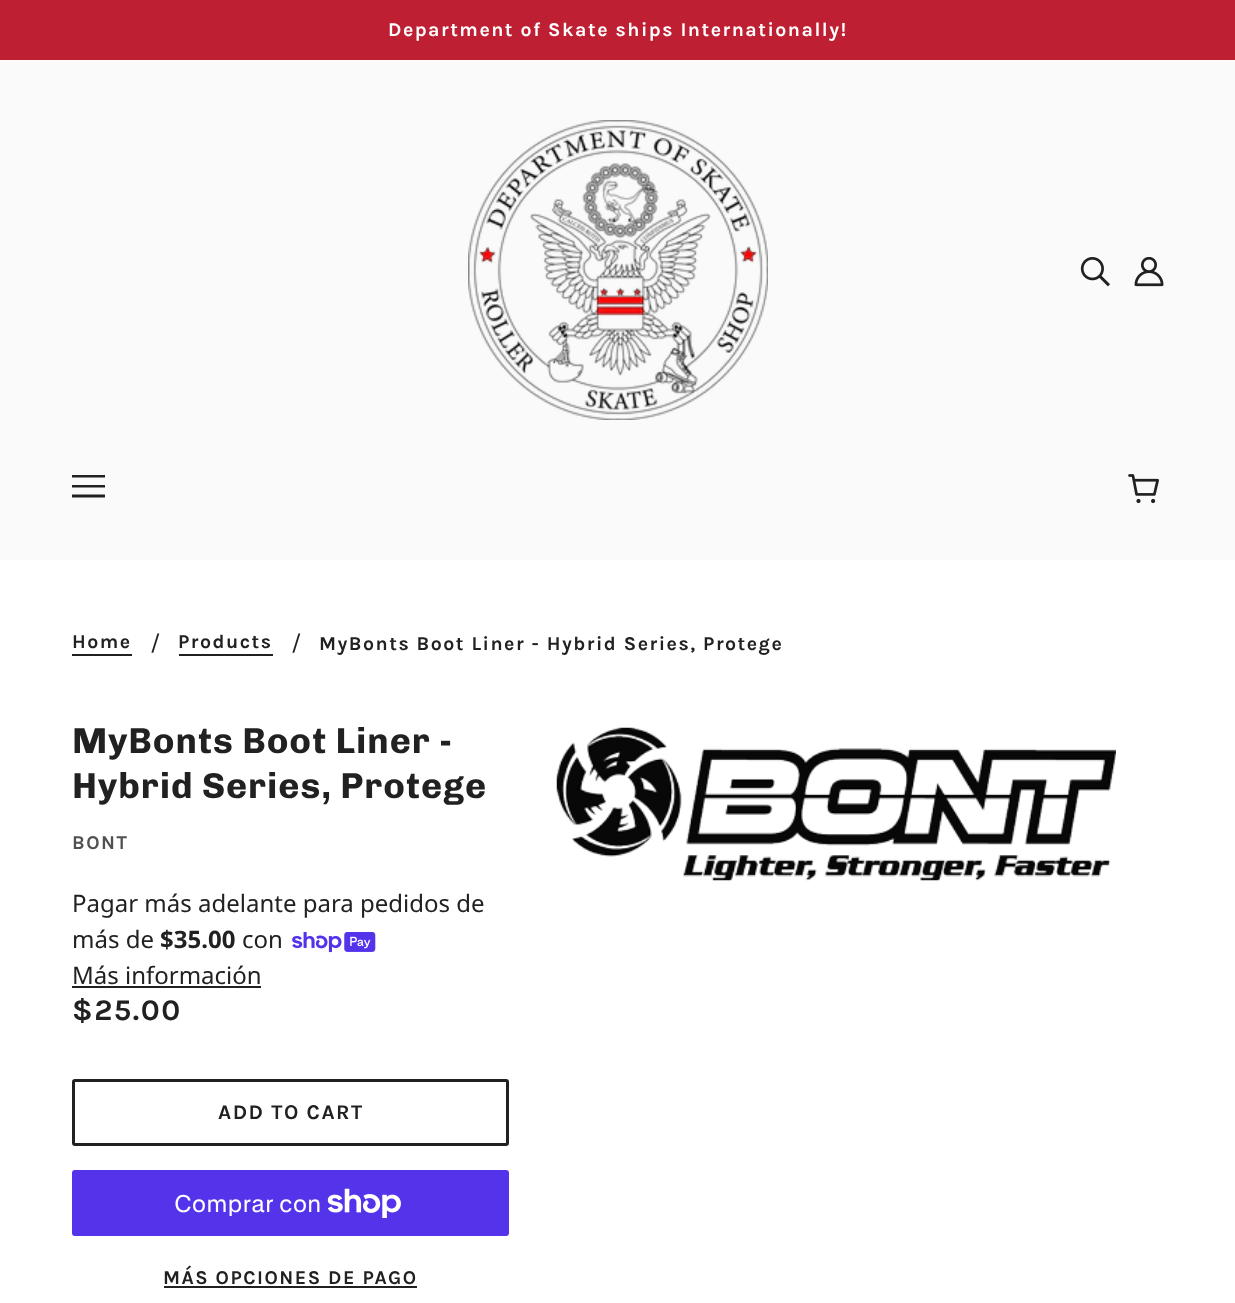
<svg xmlns="http://www.w3.org/2000/svg" width="1235" height="1303">
	<rect width="100%" height="100%" fill="#FFFFFF" />
	<rect x="0" y="0" width="1235" height="60" fill="#BF1F32" />
	<text x="388" y="36" font-family="Karla" font-size="19.5" font-weight="700" letter-spacing="1.5" fill="#FFFFFF">Department of Skate ships Internationally!</text>
	<rect x="0" y="60" width="1235" height="500" fill="#FAFAFA" />
	<image x="468" y="120" width="300" height="300" href="assets/img1.png" />
	<image x="1080" y="257" width="30" height="30" href="assets/img2.png" />
	<image x="1134" y="257" width="30" height="30" href="assets/img3.png" />
	<path d="M72 477.5V475H105V477.5ZM72 487.5V485H105V487.5ZM72 497.5V494.5H105V497.5Z" fill="#212121" />
	<image x="1128" y="474" width="31" height="30" href="assets/img4.png" />
	<text x="72" y="648" font-family="Karla" font-size="19.5" font-weight="700" letter-spacing="1.5" fill="#212121">Home</text>
	<rect x="72" y="654" width="60" height="2" fill="#212121" />
	<text x="150" y="651" font-family="Karla" font-size="24" fill="#212121">/</text>
	<text x="178" y="648" font-family="Karla" font-size="19.5" font-weight="700" letter-spacing="1.5" fill="#212121">Products</text>
	<rect x="179" y="654" width="94" height="2" fill="#212121" />
	<text x="291" y="651" font-family="Karla" font-size="24" fill="#212121">/</text>
	<text x="319" y="650" font-family="Karla" font-size="19.5" font-weight="700" letter-spacing="1.5" fill="#212121">MyBonts Boot Liner - Hybrid Series, Protege</text>
	<g font-family="Chivo" font-size="36" font-weight="700" letter-spacing="0.9" fill="#212121">
		<text x="72" y="753">MyBonts Boot Liner -</text>
		<text x="72" y="798">Hybrid Series, Protege</text>
	</g>
	<text x="72" y="849" font-family="Karla" font-size="19.5" font-weight="700" letter-spacing="1.5" fill="#515151">BONT</text>
	<image x="556" y="727" width="560" height="154" href="assets/img5.png" />
	<g font-family="Noto Sans" font-size="24" fill="#212121">
		<text x="72" y="912">Pagar más adelante para pedidos de</text>
		<text x="72" y="948">más de</text>
	</g>
	<text x="160" y="948" font-family="Noto Sans" font-size="24" font-weight="700" fill="#212121">$35.00</text>
	<text x="242" y="948" font-family="Noto Sans" font-size="24" fill="#212121">con</text>
	<image x="292" y="932" width="84" height="21" href="assets/img6.png" />
	<text x="72" y="984" font-family="Noto Sans" font-size="24" fill="#212121">Más información</text>
	<rect x="72" y="986" width="189" height="2" fill="#212121" />
	<text x="72" y="1020" font-family="Karla" font-size="30" font-weight="700" letter-spacing="1.5" fill="#212121">$25.00</text>
	<rect x="73.5" y="1080.5" width="434" height="64" rx="1.5" fill="none" stroke="#212121" stroke-width="3" />
	<text x="218" y="1119" font-family="Karla" font-size="21" font-weight="700" letter-spacing="1.5" fill="#212121">ADD TO CART</text>
	<rect x="72" y="1170" width="437" height="66" rx="3" fill="#5433EB" />
	<text x="174" y="1212" font-family="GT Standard" font-size="24" fill="#FFFFFF">Comprar con</text>
	<image x="327" y="1188" width="74" height="30" href="assets/img7.png" />
	<text x="163" y="1284" font-family="Karla" font-size="19.5" font-weight="700" letter-spacing="1.5" fill="#212121">MÁS OPCIONES DE PAGO</text>
	<rect x="164" y="1286" width="253" height="2" fill="#212121" />
</svg>
